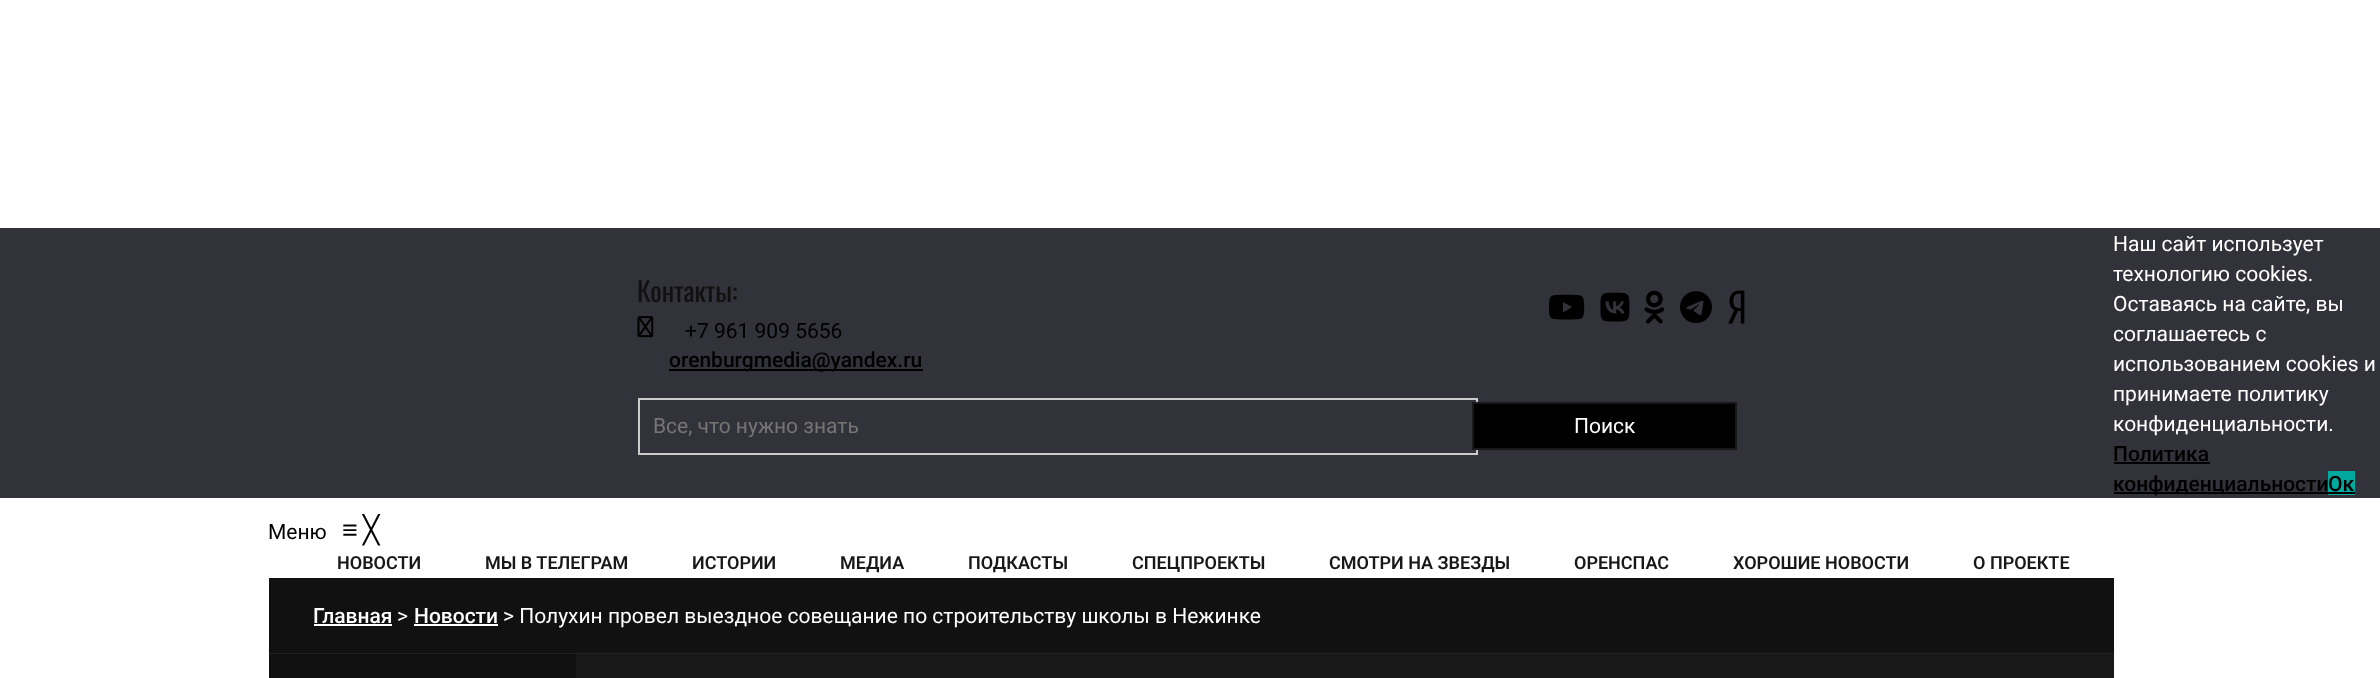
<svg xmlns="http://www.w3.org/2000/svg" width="2380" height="678">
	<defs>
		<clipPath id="clip1"><rect x="654" y="413" width="786" height="24" /></clipPath>
	</defs>
	<rect width="100%" height="100%" fill="#FFFFFF" />
	<rect x="0" y="228" width="2380" height="270" fill="#32323A" />
	<text x="637" y="302" font-family="Oswald" font-size="27" fill="#111111">Контакты:</text>
	<image x="637" y="316" width="17" height="22" href="assets/img1.png" />
	<text x="685" y="338" font-family="Roboto" font-size="21" fill="#000000">+7 961 909 5656</text>
	<rect x="669" y="369" width="254" height="2" fill="#000000" />
	<text x="669" y="367" font-family="Roboto" font-size="21" font-weight="500" fill="#000000">orenburgmedia@yandex.ru</text>
	<image x="1549" y="294" width="36" height="26" href="assets/img2.png" />
	<image x="1600" y="292" width="30" height="30" href="assets/img3.png" />
	<image x="1644" y="290" width="21" height="34" href="assets/img4.png" />
	<image x="1680" y="291" width="32" height="33" href="assets/img5.png" />
	<image x="1728" y="290" width="17" height="34" href="assets/img6.png" />
	<rect x="639" y="399" width="838" height="55" fill="none" stroke="#CCCCCC" stroke-width="2" />
	<g clip-path="url(#clip1)">
		<text x="653" y="433" font-family="Roboto" font-size="21" fill="#757575">Все, что нужно знать</text>
	</g>
	<rect x="1473" y="403" width="263" height="46" fill="#000000" stroke="#181818" stroke-width="2" />
	<text x="1574" y="433" font-family="Roboto" font-size="21" fill="#FFFFFF">Поиск</text>
	<text x="268" y="539" font-family="Roboto" font-size="21" fill="#000000">Меню</text>
	<text x="342" y="539" font-family="Liberation Sans" font-size="27" fill="#000000">≡</text>
	<text x="363" y="539" font-family="DejaVu Sans" font-size="27" fill="#000000">╳</text>
	<g font-family="Roboto" font-size="18" font-weight="600" fill="#181818">
		<text x="337" y="569">НОВОСТИ</text>
		<text x="485" y="569">МЫ В ТЕЛЕГРАМ</text>
		<text x="692" y="569">ИСТОРИИ</text>
		<text x="840" y="569">МЕДИА</text>
		<text x="968" y="569">ПОДКАСТЫ</text>
		<text x="1132" y="569">СПЕЦПРОЕКТЫ</text>
		<text x="1329" y="569">СМОТРИ НА ЗВЕЗДЫ</text>
		<text x="1574" y="569">ОРЕНСПАС</text>
		<text x="1733" y="569">ХОРОШИЕ НОВОСТИ</text>
		<text x="1973" y="569">О ПРОЕКТЕ</text>
	</g>
	<g font-family="Roboto" font-size="21" fill="#FFFFFF">
		<text x="2113" y="251">Наш сайт использует</text>
		<text x="2113" y="281">технологию cookies.</text>
		<text x="2113" y="311">Оставаясь на сайте, вы</text>
		<text x="2113" y="341">соглашаетесь с</text>
		<text x="2113" y="371">использованием cookies и</text>
		<text x="2113" y="401">принимаете политику</text>
		<text x="2113" y="431">конфиденциальности.</text>
	</g>
	<text x="2113" y="461" font-family="Roboto" font-size="21" font-weight="500" fill="#000000">Политика</text>
	<rect x="2114" y="462" width="96" height="2" fill="#000000" />
	<rect x="2114" y="492" width="214" height="2" fill="#000000" />
	<text x="2113" y="491" font-family="Roboto" font-size="21" font-weight="500" fill="#000000">конфиденциальности</text>
	<rect x="2328" y="471" width="27" height="24" fill="#00A99D" />
	<text x="2328" y="491" font-family="Roboto" font-size="21" font-weight="500" fill="#000000">Ок</text>
	<rect x="2328" y="492" width="27" height="2" fill="#000000" />
	<rect x="269" y="653" width="1845" height="1" fill="#222222" />
	<rect x="269" y="578" width="1845" height="75" fill="#111111" />
	<text x="313" y="623" font-family="Roboto" font-size="21" font-weight="500" fill="#FFFFFF">Главная</text>
	<rect x="314" y="624" width="78" height="2" fill="#FFFFFF" />
	<text x="397" y="623" font-family="Roboto" font-size="21" fill="#FFFFFF">&gt;</text>
	<text x="414" y="623" font-family="Roboto" font-size="21" font-weight="500" fill="#FFFFFF">Новости</text>
	<rect x="414" y="624" width="84" height="2" fill="#FFFFFF" />
	<text x="503" y="623" font-family="Roboto" font-size="21" fill="#FFFFFF">&gt; Полухин провел выездное совещание по строительству школы в Нежинке</text>
	<rect x="269" y="654" width="307" height="24" fill="#111111" />
	<rect x="576" y="654" width="1538" height="24" fill="#181818" />
</svg>
